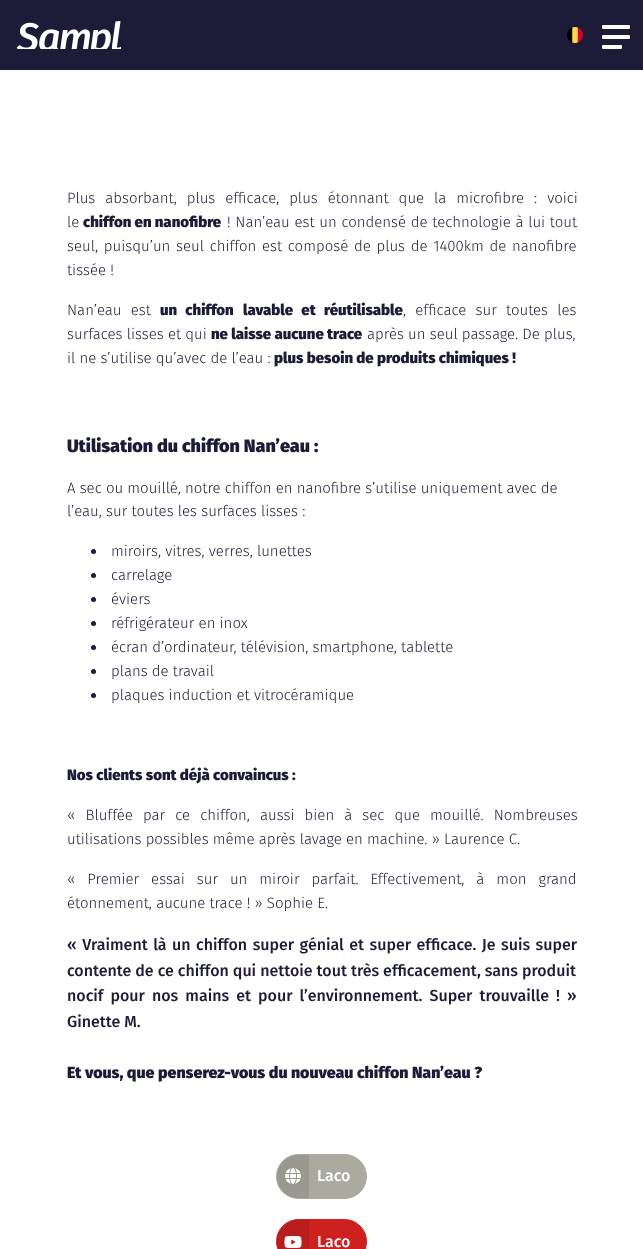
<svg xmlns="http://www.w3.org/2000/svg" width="643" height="1249">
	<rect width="100%" height="100%" fill="#FFFFFF" />
	<rect x="0" y="0" width="643" height="70" fill="#1C1C38" />
	<image x="16" y="21" width="105" height="28" href="assets/img1.png" />
	<image x="567" y="27" width="16" height="16" href="assets/img2.png" />
	<rect x="602" y="35" width="28" height="4" rx="1" fill="#FFFFFF" />
	<rect x="602" y="25" width="28" height="4" rx="1" fill="#FFFFFF" />
	<rect x="602" y="45" width="20" height="4" rx="1" fill="#FFFFFF" />
	<g font-family="Fira Sans" font-size="15" font-weight="300" fill="#1C1C38">
		<text x="67" y="203" word-spacing="5.75">Plus absorbant, plus efficace, plus étonnant que la microfibre : voici</text>
		<text x="67" y="227">le</text>
	</g>
	<text x="83" y="227" font-family="Fira Sans" font-size="15" font-weight="900" fill="#1C1C38">chiffon en nanofibre</text>
	<g font-family="Fira Sans" font-size="15" font-weight="300" fill="#1C1C38">
		<text x="227" y="227" word-spacing="0.5">! Nan’eau est un condensé de technologie à lui tout</text>
		<text x="67" y="251" word-spacing="1.5">seul, puisqu’un seul chiffon est composé de plus de 1400km de nanofibre</text>
		<text x="67" y="275">tissée !</text>
		<text x="67" y="315" word-spacing="5">Nan’eau est</text>
	</g>
	<g font-family="Fira Sans" font-size="15" font-weight="900" fill="#1C1C38">
		<text x="160" y="315" word-spacing="5">un chiffon</text>
		<text x="243" y="315" word-spacing="5">lavable et réutilisable</text>
	</g>
	<g font-family="Fira Sans" font-size="15" font-weight="300" fill="#1C1C38">
		<text x="403" y="315" word-spacing="5">, efficace sur toutes les</text>
		<text x="67" y="339">surfaces lisses et qui</text>
	</g>
	<text x="211" y="339" font-family="Fira Sans" font-size="15" font-weight="900" fill="#1C1C38">ne laisse aucune trace</text>
	<g font-family="Fira Sans" font-size="15" font-weight="300" fill="#1C1C38">
		<text x="367" y="339">après un seul passage. De plus,</text>
		<text x="67" y="363">il ne s’utilise qu’avec de l’eau :</text>
	</g>
	<text x="274" y="363" font-family="Fira Sans" font-size="15" font-weight="900" fill="#1C1C38">plus besoin de produits chimiques !</text>
	<text x="67" y="452" font-family="Fira Sans" font-size="18" font-weight="900" fill="#1C1C38">Utilisation du chiffon Nan’eau :</text>
	<g font-family="Fira Sans" font-size="15" font-weight="300" fill="#1C1C38">
		<text x="67" y="493">A sec ou mouillé, notre chiffon en nanofibre s’utilise uniquement avec de</text>
		<text x="67" y="516">l’eau, sur toutes les surfaces lisses :</text>
	</g>
	<circle cx="93.5" cy="551.5" r="2.5" fill="#1C1C38" />
	<text x="111" y="556" font-family="Fira Sans" font-size="15" font-weight="300" fill="#1C1C38">miroirs, vitres, verres, lunettes</text>
	<circle cx="93.5" cy="575.5" r="2.5" fill="#1C1C38" />
	<text x="111" y="580" font-family="Fira Sans" font-size="15" font-weight="300" fill="#1C1C38">carrelage</text>
	<circle cx="93.5" cy="599.5" r="2.5" fill="#1C1C38" />
	<text x="111" y="604" font-family="Fira Sans" font-size="15" font-weight="300" fill="#1C1C38">éviers</text>
	<circle cx="93.5" cy="623.5" r="2.5" fill="#1C1C38" />
	<text x="111" y="628" font-family="Fira Sans" font-size="15" font-weight="300" fill="#1C1C38">réfrigérateur en inox</text>
	<circle cx="93.5" cy="647.5" r="2.5" fill="#1C1C38" />
	<text x="111" y="652" font-family="Fira Sans" font-size="15" font-weight="300" fill="#1C1C38">écran d’ordinateur, télévision, smartphone, tablette</text>
	<circle cx="93.5" cy="671.5" r="2.5" fill="#1C1C38" />
	<text x="111" y="676" font-family="Fira Sans" font-size="15" font-weight="300" fill="#1C1C38">plans de travail</text>
	<circle cx="93.5" cy="695.5" r="2.5" fill="#1C1C38" />
	<text x="111" y="700" font-family="Fira Sans" font-size="15" font-weight="300" fill="#1C1C38">plaques induction et vitrocéramique</text>
	<text x="67" y="780" font-family="Fira Sans" font-size="15" font-weight="900" fill="#1C1C38">Nos clients sont déjà convaincus :</text>
	<g font-family="Fira Sans" font-size="15" font-weight="300" fill="#1C1C38">
		<text x="67" y="820" word-spacing="5.9">« Bluffée par ce chiffon, aussi bien à sec que mouillé. Nombreuses</text>
		<text x="67" y="844">utilisations possibles même après lavage en machine. » Laurence C.</text>
		<text x="67" y="884" word-spacing="7.75">« Premier essai sur un miroir parfait. Effectivement, à mon grand</text>
		<text x="67" y="908">étonnement, aucune trace ! » Sophie E.</text>
	</g>
	<g font-family="Fira Sans" font-size="16" font-weight="500" fill="#1C1C38">
		<text x="67" y="950" word-spacing="1.5">« Vraiment là un chiffon super génial et super efficace. Je suis super</text>
		<text x="67" y="976">contente de ce chiffon qui nettoie tout très efficacement, sans produit</text>
		<text x="67" y="1001" word-spacing="3.1">nocif pour nos mains et pour l’environnement. Super trouvaille ! »</text>
		<text x="67" y="1027">Ginette M.</text>
	</g>
	<text x="67" y="1078" font-family="Fira Sans" font-size="16" font-weight="900" fill="#1C1C38">Et vous, que penserez-vous du nouveau chiffon Nan’eau ?</text>
	<rect x="276.5" y="1154.5" width="90" height="44" rx="22" fill="#AAAA9F" stroke="#AAAA9F" />
	<path d="M298.5 1155H309V1198H298.5C286.5 1198 277 1188.5 277 1176.5C277 1164.5 286.5 1155 298.5 1155Z" fill="#99998F" />
	<image x="285" y="1168" width="16" height="16" href="assets/img3.png" />
	<text x="317" y="1181" font-family="Fira Sans" font-size="16" font-weight="500" fill="#FFFFFF">Laco</text>
	<rect x="276.5" y="1219.5" width="90" height="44" rx="22" fill="#CD201F" stroke="#CD201F" />
	<path d="M298.5 1220H309V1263H298.5C286.5 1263 277 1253.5 277 1241.5C277 1229.5 286.5 1220 298.5 1220Z" fill="#B91D1C" />
	<image x="284" y="1236" width="18" height="12" href="assets/img4.png" />
	<text x="317" y="1247" font-family="Fira Sans" font-size="16" font-weight="500" fill="#FFFFFF">Laco</text>
</svg>
